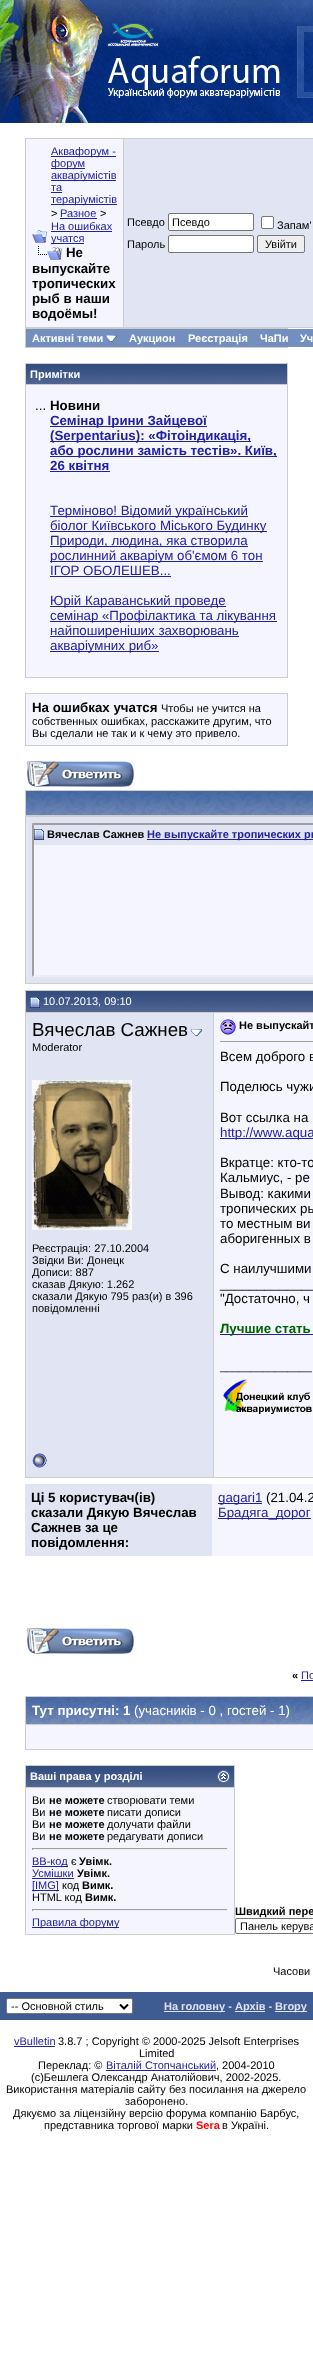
<svg xmlns="http://www.w3.org/2000/svg" width="313" height="2360">
	<defs>
		<clipPath id="clip1"><rect x="172" y="216" width="78" height="12" /></clipPath>
	</defs>
	<rect width="100%" height="100%" fill="#FFFFFF" />
	<image x="103" y="0" width="210" height="123" href="assets/img1.png" />
	<image x="0" y="0" width="103" height="123" href="assets/img2.png" />
	<image x="107" y="23" width="52" height="24" href="assets/img3.png" />
	<image x="108" y="56" width="172" height="42" href="assets/img4.png" />
	<image x="297" y="26" width="16" height="72" href="assets/img5.png" />
	<rect x="25" y="138" width="288" height="190" fill="#CDCDCD" />
	<rect x="26" y="139" width="97" height="188" fill="#F5F5FF" />
	<image x="32" y="230" width="15" height="13" href="assets/img6.png" />
	<rect x="51" y="156" width="65" height="1" fill="#22229C" />
	<text x="51" y="155" font-family="Liberation Sans" font-size="11" fill="#22229C">Аквафорум -</text>
	<rect x="51" y="168" width="34" height="1" fill="#22229C" />
	<text x="51" y="167" font-family="Liberation Sans" font-size="11" fill="#22229C">форум</text>
	<rect x="51" y="180" width="65" height="1" fill="#22229C" />
	<g font-family="Liberation Sans" font-size="11" fill="#22229C">
		<text x="51" y="179">акваріумістів</text>
		<text x="51" y="191">та</text>
	</g>
	<rect x="51" y="192" width="11" height="1" fill="#22229C" />
	<rect x="51" y="204" width="66" height="1" fill="#22229C" />
	<text x="51" y="203" font-family="Liberation Sans" font-size="11" fill="#22229C">тераріумістів</text>
	<text x="51" y="217" font-family="Liberation Sans" font-size="11" fill="#000000">&gt;</text>
	<text x="60" y="217" font-family="Liberation Sans" font-size="11" fill="#22229C">Разное</text>
	<rect x="60" y="218" width="37" height="1" fill="#22229C" />
	<text x="100" y="217" font-family="Liberation Sans" font-size="11" fill="#000000">&gt;</text>
	<text x="51" y="230" font-family="Liberation Sans" font-size="11" fill="#22229C">На ошибках</text>
	<rect x="51" y="231" width="61" height="1" fill="#22229C" />
	<rect x="51" y="243" width="33" height="1" fill="#22229C" />
	<text x="51" y="242" font-family="Liberation Sans" font-size="11" fill="#22229C">учатся</text>
	<image x="38" y="246" width="24" height="14" href="assets/img7.png" />
	<g font-family="Liberation Sans" font-size="13.3" font-weight="700" fill="#000000">
		<text x="66" y="257">Не</text>
		<text x="32" y="273">выпускайте</text>
		<text x="32" y="288">тропических</text>
		<text x="32" y="303">рыб в наши</text>
		<text x="32" y="318">водоёмы!</text>
	</g>
	<rect x="124" y="139" width="189" height="188" fill="#E1E4F2" />
	<text x="127" y="226" font-family="Liberation Sans" font-size="11" fill="#000000">Псевдо</text>
	<rect x="168.5" y="213.5" width="85" height="17" rx="1.5" fill="#FFFFFF" stroke="#767676" />
	<g clip-path="url(#clip1)">
		<text x="172" y="226" font-family="Liberation Sans" font-size="11" fill="#000000">Псевдо</text>
	</g>
	<rect x="261.5" y="216.5" width="12" height="12" rx="1.5" fill="#FFFFFF" stroke="#767676" />
	<g font-family="Liberation Sans" font-size="11" fill="#000000">
		<text x="277" y="229">Запам'</text>
		<text x="127" y="248">Пароль</text>
	</g>
	<rect x="168.5" y="235.5" width="85" height="17" rx="1.5" fill="#FFFFFF" stroke="#767676" />
	<rect x="257.5" y="235.5" width="47" height="17" rx="1.5" fill="#EFEFEF" stroke="#767676" />
	<text x="265" y="248" font-family="Liberation Sans" font-size="11" fill="#000000">Увійти</text>
	<rect x="25" y="328" width="263" height="20" fill="#CDCDCD" />
	<rect x="26" y="329" width="287" height="18" fill="#738FBF" />
	<text x="32" y="342" font-family="Liberation Sans" font-size="11" font-weight="700" fill="#FFFFFF">Активні теми</text>
	<image x="106" y="335" width="11" height="7" href="assets/img8.png" />
	<g font-family="Liberation Sans" font-size="11" font-weight="700" fill="#FFFFFF">
		<text x="129" y="342">Аукцион</text>
		<text x="188" y="342">Реєстрація</text>
		<text x="260" y="342">ЧаПи</text>
		<text x="300" y="342">Уч</text>
	</g>
	<rect x="25" y="363" width="263" height="315" fill="#CDCDCD" />
	<image x="26" y="364" width="261" height="20" href="assets/img9.png" />
	<text x="30" y="378" font-family="Liberation Sans" font-size="11" font-weight="700" fill="#FFFFFF">Примітки</text>
	<rect x="26" y="385" width="261" height="292" fill="#F5F5FF" />
	<text x="35" y="410" font-family="Liberation Sans" font-size="13.3" fill="#000000">...</text>
	<text x="50" y="410" font-family="Liberation Sans" font-size="13.3" font-weight="700" fill="#000000">Новини</text>
	<rect x="50" y="426" width="157" height="1" fill="#22229C" />
	<text x="50" y="425" font-family="Liberation Sans" font-size="13.3" font-weight="700" fill="#22229C">Семінар Ірини Зайцевої</text>
	<rect x="50" y="441" width="201" height="1" fill="#22229C" />
	<text x="50" y="440" font-family="Liberation Sans" font-size="13.3" font-weight="700" fill="#22229C">(Serpentarius): «Фітоіндикація,</text>
	<rect x="50" y="456" width="227" height="1" fill="#22229C" />
	<g font-family="Liberation Sans" font-size="13.3" font-weight="700" fill="#22229C">
		<text x="50" y="455">або рослини замість тестів». Київ,</text>
		<text x="50" y="470">26 квітня</text>
	</g>
	<rect x="50" y="471" width="60" height="1" fill="#22229C" />
	<rect x="50" y="516" width="198" height="1" fill="#22229C" />
	<text x="50" y="515" font-family="Liberation Sans" font-size="13.3" fill="#22229C">Терміново! Відомий український</text>
	<rect x="50" y="531" width="217" height="1" fill="#22229C" />
	<text x="50" y="530" font-family="Liberation Sans" font-size="13.3" fill="#22229C">біолог Київського Міського Будинку</text>
	<rect x="50" y="546" width="198" height="1" fill="#22229C" />
	<text x="50" y="545" font-family="Liberation Sans" font-size="13.3" fill="#22229C">Природи, людина, яка створила</text>
	<rect x="50" y="561" width="213" height="1" fill="#22229C" />
	<g font-family="Liberation Sans" font-size="13.3" fill="#22229C">
		<text x="50" y="560">рослинний акваріум об'ємом 6 тон</text>
		<text x="50" y="575">ІГОР ОБОЛЕШЕВ...</text>
	</g>
	<rect x="50" y="576" width="121" height="1" fill="#22229C" />
	<rect x="50" y="606" width="176" height="1" fill="#22229C" />
	<text x="50" y="605" font-family="Liberation Sans" font-size="13.3" fill="#22229C">Юрій Караванський проведе</text>
	<rect x="50" y="621" width="227" height="1" fill="#22229C" />
	<text x="50" y="620" font-family="Liberation Sans" font-size="13.3" fill="#22229C">семінар «Профілактика та лікування</text>
	<rect x="50" y="636" width="189" height="1" fill="#22229C" />
	<text x="50" y="635" font-family="Liberation Sans" font-size="13.3" fill="#22229C">найпоширеніших захворювань</text>
	<rect x="50" y="651" width="109" height="1" fill="#22229C" />
	<text x="50" y="650" font-family="Liberation Sans" font-size="13.3" fill="#22229C">акваріумних риб»</text>
	<rect x="25" y="693" width="263" height="53" fill="#CDCDCD" />
	<rect x="26" y="694" width="261" height="51" fill="#F5F5FF" />
	<text x="32" y="712" font-family="Liberation Sans" font-size="13.3" font-weight="700" fill="#000000">На ошибках учатся</text>
	<g font-family="Liberation Sans" font-size="11" fill="#000000">
		<text x="161" y="712">Чтобы не учится на</text>
		<text x="32" y="725">собственных ошибках, расскажите другим, что</text>
		<text x="32" y="737">Вы сделали не так и к чему это привело.</text>
	</g>
	<image x="26" y="761" width="108" height="26" href="assets/img10.png" />
	<rect x="25" y="790" width="288" height="194" fill="#CDCDCD" />
	<image x="26" y="791" width="287" height="24" href="assets/img11.png" />
	<rect x="26" y="817" width="287" height="166" fill="#E1E4F2" />
	<rect x="32" y="823" width="281" height="154" fill="#F5F5FF" />
	<path d="M32 823H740L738 825H34Z" fill="#9F9F9F" />
	<path d="M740 977H32L34 975H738Z" fill="#EEEEEE" />
	<path d="M32 977V823L34 825V975Z" fill="#9F9F9F" />
	<rect x="34" y="825" width="279" height="20" fill="#E1E4F2" />
	<image x="34" y="829" width="10" height="11" href="assets/img12.png" />
	<text x="47" y="838" font-family="Liberation Sans" font-size="11" font-weight="700" fill="#000000">Вячеслав Сажнев</text>
	<rect x="147" y="839" width="166" height="1" fill="#22229C" />
	<text x="147" y="838" font-family="Liberation Sans" font-size="11" font-weight="700" fill="#22229C">Не выпускайте тропических ры</text>
	<image x="26" y="991" width="188" height="21" href="assets/img13.png" />
	<rect x="25" y="990" width="288" height="1" fill="#CDCDCD" />
	<rect x="25" y="1012" width="288" height="1" fill="#CDCDCD" />
	<rect x="25" y="990" width="1" height="453" fill="#CDCDCD" />
	<image x="30" y="997" width="10" height="11" href="assets/img14.png" />
	<text x="43" y="1005" font-family="Liberation Sans" font-size="11" fill="#FFFFFF">10.07.2013, 09:10</text>
	<image x="214" y="991" width="99" height="21" href="assets/img15.png" />
	<rect x="26" y="1013" width="187" height="464" fill="#E1E4F2" />
	<rect x="213" y="1013" width="1" height="465" fill="#CDCDCD" />
	<text x="32" y="1036" font-family="Liberation Sans" font-size="18.75" fill="#000000">Вячеслав Сажнев</text>
	<image x="191" y="1029" width="11" height="7" href="assets/img16.png" />
	<text x="32" y="1051" font-family="Liberation Sans" font-size="11" fill="#000000">Moderator</text>
	<image x="32" y="1080" width="100" height="150" href="assets/img17.png" />
	<g font-family="Liberation Sans" font-size="11" fill="#000000">
		<text x="32" y="1252">Реєстрація: 27.10.2004</text>
		<text x="32" y="1264">Звідки Ви: Донецк</text>
		<text x="32" y="1276">Дописи: 887</text>
		<text x="32" y="1288">сказав Дякую: 1.262</text>
		<text x="32" y="1300">сказали Дякую 795 раз(и) в 396</text>
		<text x="32" y="1312">повідомленні</text>
	</g>
	<rect x="214" y="1013" width="99" height="464" fill="#F5F5FF" />
	<image x="220" y="1019" width="16" height="16" href="assets/img18.png" />
	<text x="239" y="1029" font-family="Liberation Sans" font-size="11" font-weight="700" fill="#000000">Не выпускайт</text>
	<rect x="220" y="1041" width="93" height="1" fill="#9F9F9F" />
	<g font-family="Liberation Sans" font-size="13.3" fill="#000000">
		<text x="220" y="1061">Всем доброго в</text>
		<text x="220" y="1091">Поделюсь чужи</text>
		<text x="220" y="1122">Вот ссылка на</text>
	</g>
	<rect x="220" y="1138" width="93" height="1" fill="#22229C" />
	<text x="220" y="1137" font-family="Liberation Sans" font-size="13.3" fill="#22229C">http://www.aqua</text>
	<g font-family="Liberation Sans" font-size="13.3" fill="#000000">
		<text x="220" y="1167">Вкратце: кто-то</text>
		<text x="220" y="1182">Кальмиус, - ре</text>
		<text x="220" y="1198">Вывод: какими</text>
		<text x="220" y="1213">тропических ры</text>
		<text x="220" y="1228">то местным ви</text>
		<text x="220" y="1243">аборигенных в</text>
		<text x="220" y="1273">С наилучшими</text>
		<text x="220" y="1288">_____________</text>
		<text x="220" y="1303">"Достаточно, ч</text>
	</g>
	<rect x="220" y="1334" width="93" height="1" fill="#22229C" />
	<text x="220" y="1333" font-family="Liberation Sans" font-size="13.3" font-weight="700" fill="#006400">Лучшие стать</text>
	<text x="220" y="1370" font-family="Liberation Sans" font-size="11" fill="#000000">_______________</text>
	<image x="221" y="1378" width="91" height="38" href="assets/img19.png" />
	<rect x="25" y="1477" width="288" height="1" fill="#CDCDCD" />
	<rect x="25" y="1443" width="1" height="35" fill="#CDCDCD" />
	<image x="32" y="1453" width="15" height="15" href="assets/img20.png" />
	<rect x="25" y="1484" width="187" height="72" fill="#E1E4F2" />
	<g font-family="Liberation Sans" font-size="13.3" font-weight="700" fill="#000000">
		<text x="31" y="1502">Ці 5 користувач(ів)</text>
		<text x="31" y="1517">сказали Дякую Вячеслав</text>
		<text x="31" y="1532">Сажнев за це</text>
		<text x="31" y="1547">повідомлення:</text>
	</g>
	<rect x="212" y="1484" width="101" height="72" fill="#F5F5FF" />
	<rect x="218" y="1503" width="44" height="1" fill="#22229C" />
	<text x="218" y="1502" font-family="Liberation Sans" font-size="13.3" fill="#22229C">gagari1</text>
	<text x="266" y="1502" font-family="Liberation Sans" font-size="13.3" fill="#000000">(21.04.2</text>
	<rect x="218" y="1518" width="93" height="1" fill="#22229C" />
	<text x="218" y="1517" font-family="Liberation Sans" font-size="13.3" fill="#22229C">Брадяга_дорог</text>
	<image x="26" y="1628" width="108" height="26" href="assets/img10.png" />
	<text x="292" y="1679" font-family="Liberation Sans" font-size="11" font-weight="700" fill="#000000">«</text>
	<text x="301" y="1679" font-family="Liberation Sans" font-size="11" fill="#22229C">По</text>
	<rect x="301" y="1680" width="12" height="1" fill="#22229C" />
	<rect x="25" y="1696" width="288" height="54" fill="#CDCDCD" />
	<image x="26" y="1697" width="287" height="27" href="assets/img21.png" />
	<text x="32" y="1715" font-family="Liberation Sans" font-size="13.3" font-weight="700" fill="#FFFFFF">Тут присутні: 1</text>
	<text x="134" y="1715" font-family="Liberation Sans" font-size="13.3" fill="#FFFFFF">(учасників - 0 , гостей - 1)</text>
	<rect x="26" y="1725" width="287" height="24" fill="#F5F5FF" />
	<rect x="25" y="1765" width="210" height="170" fill="#CDCDCD" />
	<image x="26" y="1766" width="208" height="21" href="assets/img22.png" />
	<text x="30" y="1780" font-family="Liberation Sans" font-size="11" font-weight="700" fill="#FFFFFF">Ваші права у розділі</text>
	<image x="217" y="1770" width="13" height="13" href="assets/img23.png" />
	<rect x="26" y="1788" width="208" height="146" fill="#F5F5FF" />
	<text x="32" y="1804" font-family="Liberation Sans" font-size="11" fill="#000000">Ви</text>
	<text x="49" y="1804" font-family="Liberation Sans" font-size="11" font-weight="700" fill="#000000">не можете</text>
	<g font-family="Liberation Sans" font-size="11" fill="#000000">
		<text x="107" y="1804">створювати теми</text>
		<text x="32" y="1816">Ви</text>
	</g>
	<text x="49" y="1816" font-family="Liberation Sans" font-size="11" font-weight="700" fill="#000000">не можете</text>
	<g font-family="Liberation Sans" font-size="11" fill="#000000">
		<text x="107" y="1816">писати дописи</text>
		<text x="32" y="1828">Ви</text>
	</g>
	<text x="49" y="1828" font-family="Liberation Sans" font-size="11" font-weight="700" fill="#000000">не можете</text>
	<g font-family="Liberation Sans" font-size="11" fill="#000000">
		<text x="107" y="1828">долучати файли</text>
		<text x="32" y="1840">Ви</text>
	</g>
	<text x="49" y="1840" font-family="Liberation Sans" font-size="11" font-weight="700" fill="#000000">не можете</text>
	<text x="107" y="1840" font-family="Liberation Sans" font-size="11" fill="#000000">редагувати дописи</text>
	<rect x="32" y="1848" width="196" height="1" fill="#9F9F9F" />
	<rect x="227" y="1848" width="1" height="2" fill="#EEEEEE" />
	<rect x="32" y="1849" width="196" height="1" fill="#EEEEEE" />
	<rect x="32" y="1848" width="1" height="2" fill="#9F9F9F" />
	<rect x="32" y="1866" width="36" height="1" fill="#22229C" />
	<text x="32" y="1865" font-family="Liberation Sans" font-size="11" fill="#22229C">BB-код</text>
	<text x="71" y="1865" font-family="Liberation Sans" font-size="11" fill="#000000">є</text>
	<text x="79" y="1865" font-family="Liberation Sans" font-size="11" font-weight="700" fill="#000000">Увімк.</text>
	<text x="32" y="1877" font-family="Liberation Sans" font-size="11" fill="#22229C">Усмішки</text>
	<rect x="32" y="1878" width="42" height="1" fill="#22229C" />
	<text x="77" y="1877" font-family="Liberation Sans" font-size="11" font-weight="700" fill="#000000">Увімк.</text>
	<rect x="32" y="1890" width="27" height="1" fill="#22229C" />
	<text x="32" y="1889" font-family="Liberation Sans" font-size="11" fill="#22229C">[IMG]</text>
	<text x="62" y="1889" font-family="Liberation Sans" font-size="11" fill="#000000">код</text>
	<text x="82" y="1889" font-family="Liberation Sans" font-size="11" font-weight="700" fill="#000000">Вимк.</text>
	<text x="32" y="1901" font-family="Liberation Sans" font-size="11" fill="#000000">HTML код</text>
	<text x="85" y="1901" font-family="Liberation Sans" font-size="11" font-weight="700" fill="#000000">Вимк.</text>
	<rect x="32" y="1909" width="196" height="1" fill="#9F9F9F" />
	<rect x="227" y="1909" width="1" height="2" fill="#EEEEEE" />
	<rect x="32" y="1910" width="196" height="1" fill="#EEEEEE" />
	<rect x="32" y="1909" width="1" height="2" fill="#9F9F9F" />
	<rect x="32" y="1927" width="87" height="1" fill="#22229C" />
	<text x="32" y="1926" font-family="Liberation Sans" font-size="11" fill="#22229C">Правила форуму</text>
	<text x="235" y="1915" font-family="Liberation Sans" font-size="11" font-weight="700" fill="#000000">Швидкий пере</text>
	<rect x="235.5" y="1918.5" width="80" height="15" rx="1.5" fill="none" stroke="#767676" />
	<g font-family="Liberation Sans" font-size="11" fill="#000000">
		<text x="240" y="1930">Панель керува</text>
		<text x="273" y="1975">Часови</text>
	</g>
	<rect x="0" y="1992" width="313" height="28" fill="#3E5C92" />
	<rect x="6.5" y="1998.5" width="126" height="15" rx="1.5" fill="#FFFFFF" stroke="#767676" />
	<path d="M120 2004.5L124 2008.5L128 2004.5" fill="none" stroke="#000000" stroke-width="2" />
	<text x="11" y="2010" font-family="Liberation Sans" font-size="11" fill="#000000">-- Основной стиль</text>
	<rect x="164" y="2011" width="61" height="1" fill="#E0E0F6" />
	<text x="164" y="2010" font-family="Liberation Sans" font-size="11" font-weight="700" fill="#E0E0F6">На головну -</text>
	<rect x="235" y="2011" width="30" height="1" fill="#E0E0F6" />
	<text x="235" y="2010" font-family="Liberation Sans" font-size="11" font-weight="700" fill="#E0E0F6">Архів -</text>
	<rect x="275" y="2011" width="32" height="1" fill="#E0E0F6" />
	<text x="275" y="2010" font-family="Liberation Sans" font-size="11" font-weight="700" fill="#E0E0F6">Вгору</text>
	<text x="14" y="2045" font-family="Liberation Sans" font-size="11" fill="#22229C">vBulletin</text>
	<rect x="14" y="2046" width="41" height="1" fill="#22229C" />
	<g font-family="Liberation Sans" font-size="11" fill="#000000">
		<text x="58" y="2045">3.8.7 ; Copyright © 2000-2025 Jelsoft Enterprises</text>
		<text x="139" y="2057">Limited</text>
		<text x="38" y="2069">Переклад: ©</text>
	</g>
	<text x="106" y="2069" font-family="Liberation Sans" font-size="11" fill="#22229C">Віталій Стопчанський</text>
	<rect x="106" y="2070" width="110" height="1" fill="#22229C" />
	<g font-family="Liberation Sans" font-size="11" fill="#000000">
		<text x="216" y="2069">, 2004-2010</text>
		<text x="31" y="2081">(с)Бешлега Олександр Анатолійович, 2002-2025.</text>
		<text x="6" y="2093">Використання матеріалів сайту без посилання на джерело</text>
		<text x="125" y="2105">заборонено.</text>
		<text x="13" y="2117">Дякуємо за ліцензійну версію форума компанію Барбус,</text>
		<text x="44" y="2129">представника торгової марки</text>
	</g>
	<text x="196" y="2129" font-family="Liberation Sans" font-size="11" font-weight="700" fill="#FF0000">Sera</text>
	<text x="222" y="2129" font-family="Liberation Sans" font-size="11" fill="#000000">в Україні.</text>
</svg>
